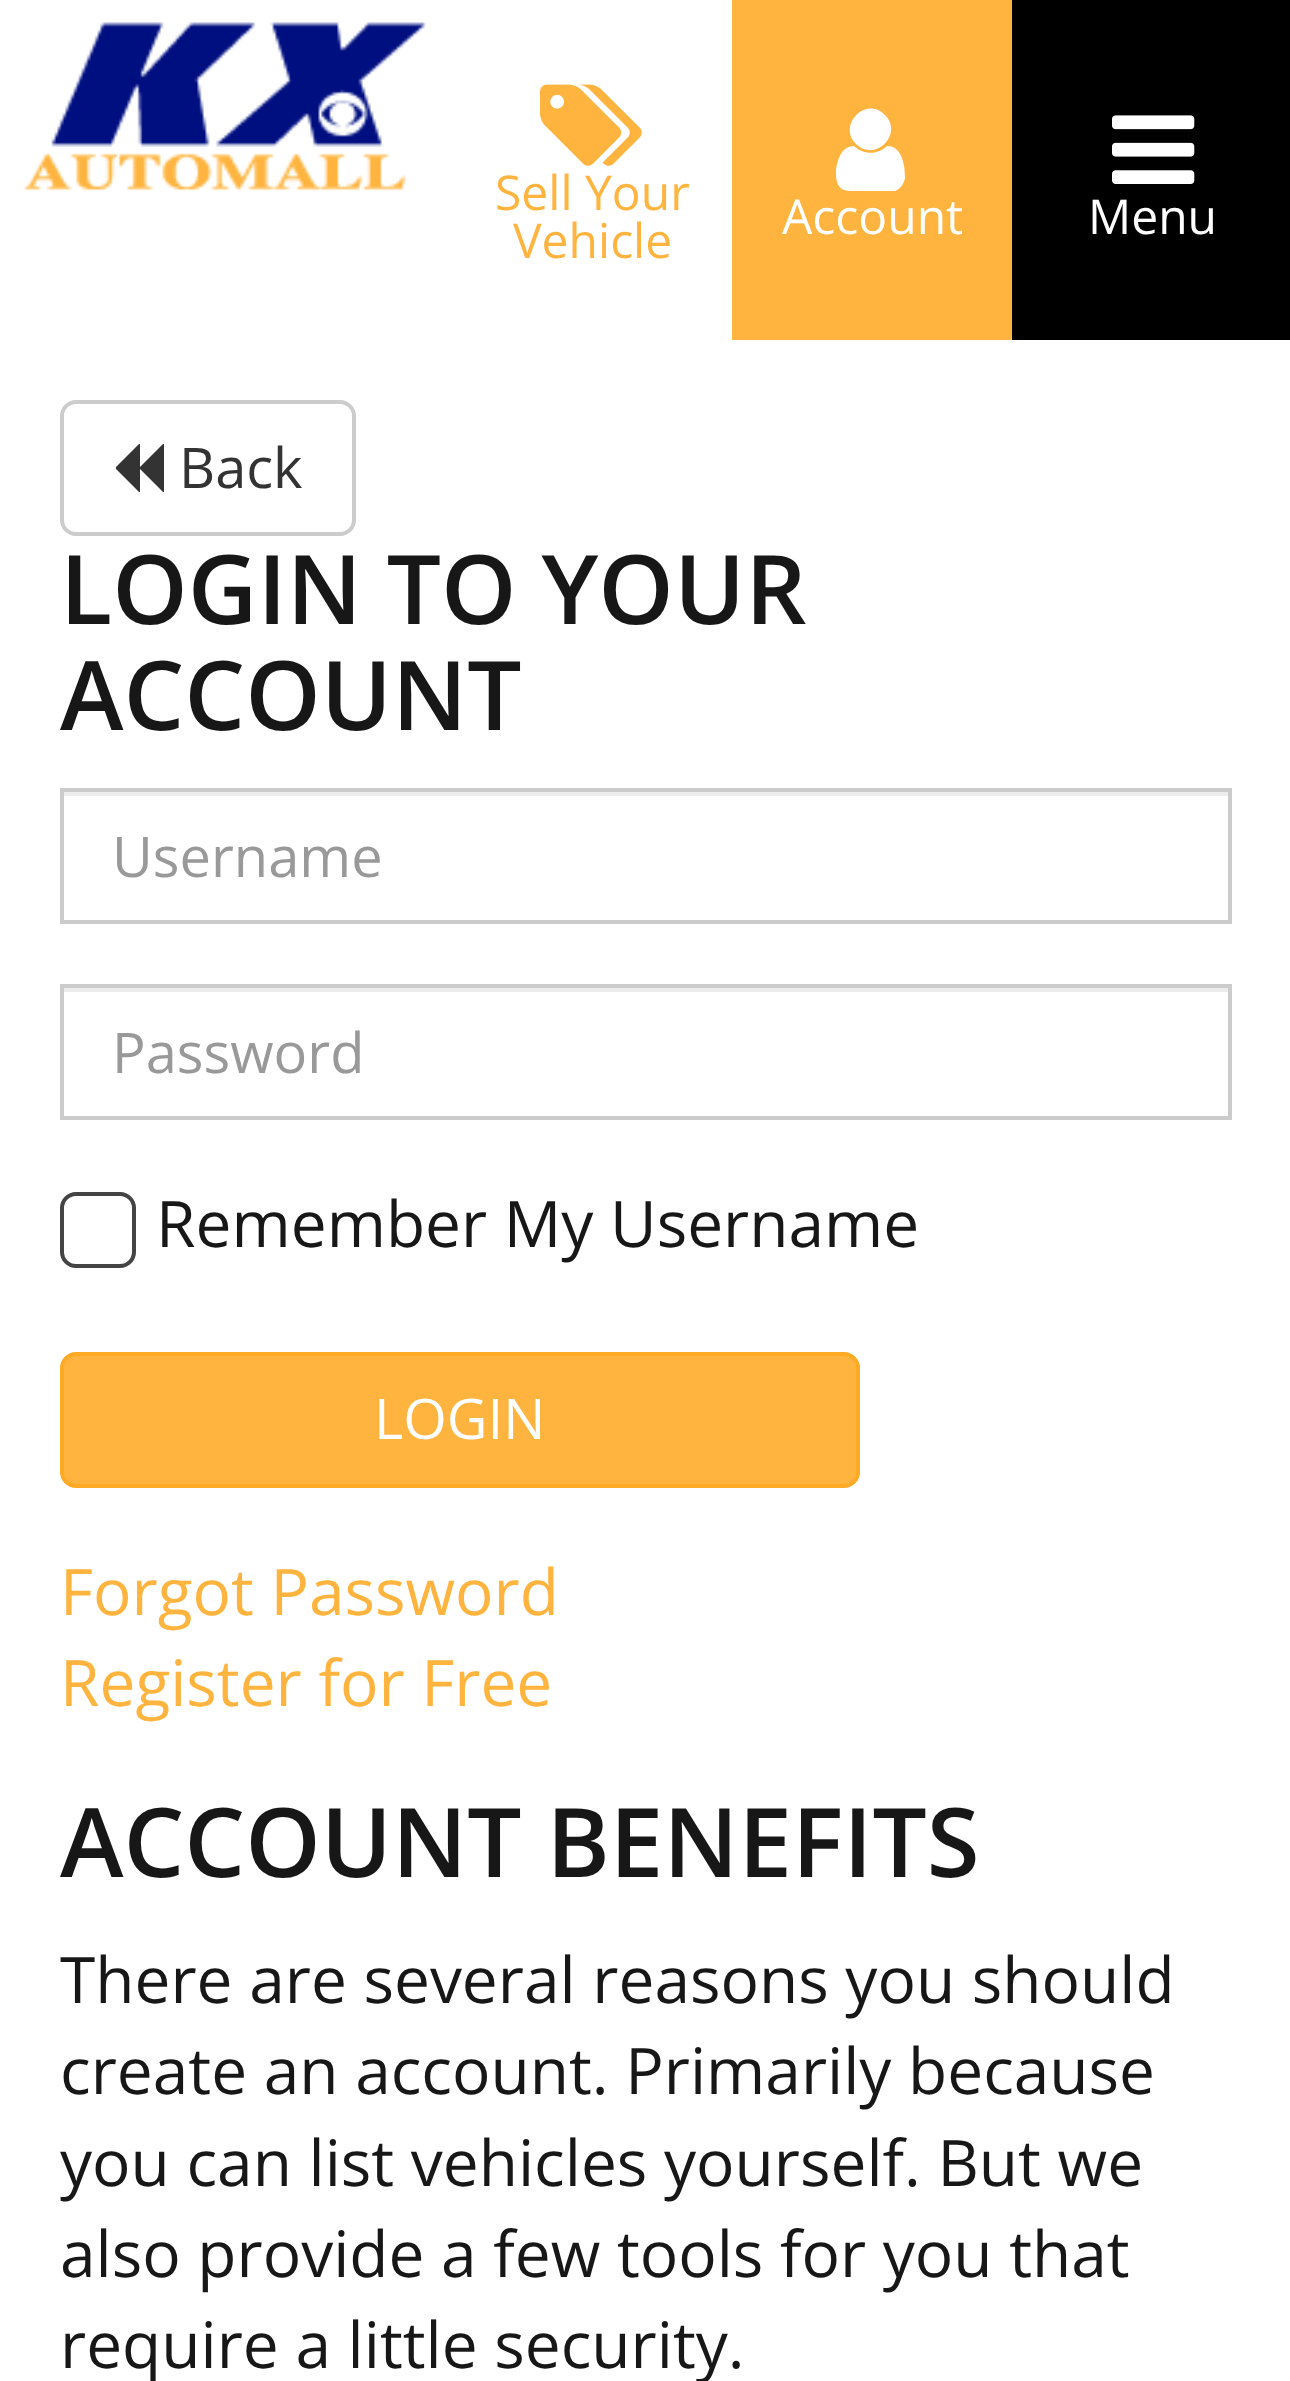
<svg xmlns="http://www.w3.org/2000/svg" width="1290" height="2381">
	<rect width="100%" height="100%" fill="#FFFFFF" />
	<image x="24" y="22" width="403" height="169" href="assets/img1.png" />
	<image x="540" y="84" width="102" height="82" href="assets/img2.png" />
	<g font-family="Open Sans" font-size="48" fill="#FFB43F">
		<text x="495" y="210">Sell Your</text>
		<text x="513" y="258">Vehicle</text>
	</g>
	<rect x="732" y="0" width="280" height="340" fill="#FFB43F" />
	<path d="M905 177C905 182 901 189 895 191H855C852 191 847 191 844 190C841 189 838 186 837 182C836 179 836 175 836 171C837 161 841 146 854 146C863 155 878 155 887 146C902 146 905 165 905 177ZM885 115C904 134 875 163 856 144C837 125 866 95 885 115Z" fill="#FFFFFF" />
	<text x="782" y="234" font-family="Open Sans" font-size="48" fill="#FFFFFF">Account</text>
	<rect x="1012" y="0" width="278" height="340" fill="#000000" />
	<image x="1112" y="115" width="83" height="69" href="assets/img3.png" />
	<text x="1088" y="234" font-family="Open Sans" font-size="48" fill="#FFFFFF">Menu</text>
	<rect x="62" y="402" width="292" height="132" rx="14" fill="none" stroke="#CCCCCC" stroke-width="4" />
	<image x="115" y="444" width="49" height="48" href="assets/img4.png" />
	<text x="179" y="488" font-family="Open Sans" font-size="56" fill="#333333">Back</text>
	<g font-family="Open Sans" font-size="96" font-weight="600" fill="#171717">
		<text x="60" y="624">LOGIN TO YOUR</text>
		<text x="60" y="730">ACCOUNT</text>
	</g>
	<rect x="64" y="792" width="1164" height="4" fill="#ECECEC" />
	<rect x="62" y="790" width="1168" height="132" fill="none" stroke="#CCCCCC" stroke-width="4" />
	<text x="112" y="877" font-family="Open Sans" font-size="56" fill="#999999">Username</text>
	<rect x="64" y="988" width="1164" height="4" fill="#ECECEC" />
	<rect x="62" y="986" width="1168" height="132" fill="none" stroke="#CCCCCC" stroke-width="4" />
	<text x="112" y="1073" font-family="Open Sans" font-size="56" fill="#999999">Password</text>
	<rect x="62" y="1194" width="72" height="72" rx="14" fill="none" stroke="#444444" stroke-width="4" />
	<text x="156" y="1247" font-family="Open Sans" font-size="64" fill="#171717">Remember My Username</text>
	<rect x="62" y="1354" width="796" height="132" rx="14" fill="#FFB43F" stroke="#FFAA25" stroke-width="4" />
	<text x="374" y="1439" font-family="Open Sans" font-size="56" fill="#FFFFFF">LOGIN</text>
	<g font-family="Open Sans" font-size="64" fill="#FFB43F">
		<text x="60" y="1615">Forgot Password</text>
		<text x="60" y="1706">Register for Free</text>
	</g>
	<text x="60" y="1877" font-family="Open Sans" font-size="96" font-weight="600" fill="#171717">ACCOUNT BENEFITS</text>
	<g font-family="Open Sans" font-size="64" fill="#171717">
		<text x="60" y="2003">There are several reasons you should</text>
		<text x="60" y="2094">create an account. Primarily because</text>
		<text x="60" y="2186">you can list vehicles yourself. But we</text>
		<text x="60" y="2277">also provide a few tools for you that</text>
		<text x="60" y="2368">require a little security.</text>
	</g>
</svg>
